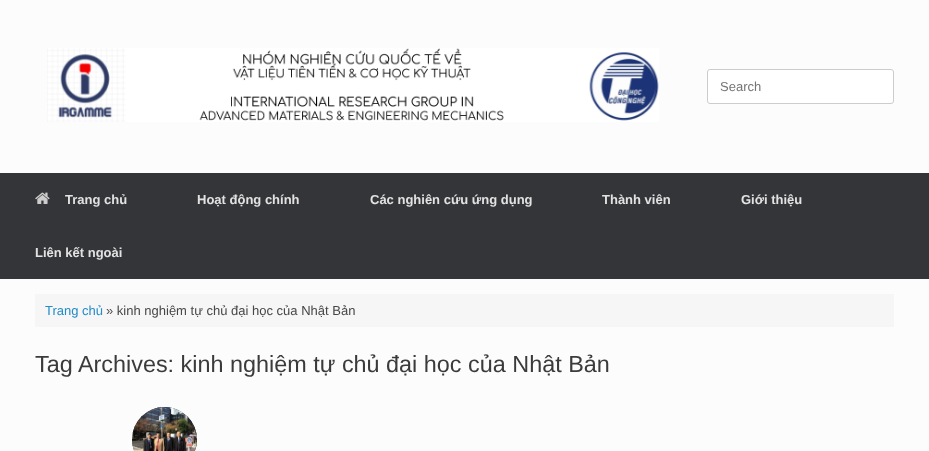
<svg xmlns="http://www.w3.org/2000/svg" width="929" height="451">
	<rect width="100%" height="100%" fill="#FCFCFC" />
	<image x="47" y="48" width="612" height="74" href="assets/img1.png" />
	<rect x="707.5" y="69.5" width="186" height="34" rx="2.5" fill="#FFFFFF" stroke="#CCCCCC" />
	<text x="720" y="91" font-family="Liberation Sans" font-size="13" fill="#757575">Search</text>
	<rect x="0" y="173" width="929" height="106" fill="#343538" />
	<image x="35" y="192" width="15" height="12" href="assets/img2.png" />
	<g font-family="Liberation Sans" font-size="13" font-weight="700" fill="#E2E2E2">
		<text x="65" y="204">Trang chủ</text>
		<text x="197" y="204">Hoạt động chính</text>
		<text x="370" y="204">Các nghiên cứu ứng dụng</text>
		<text x="602" y="204">Thành viên</text>
		<text x="741" y="204">Giới thiệu</text>
		<text x="35" y="257">Liên kết ngoài</text>
	</g>
	<rect x="35" y="294" width="859" height="33" fill="#F6F6F6" />
	<text x="45" y="315" font-family="Liberation Sans" font-size="13" fill="#248CC8">Trang chủ</text>
	<text x="106" y="315" font-family="Liberation Sans" font-size="13" fill="#474747">» kinh nghiệm tự chủ đại học của Nhật Bản</text>
	<text x="35" y="372" font-family="Liberation Sans" font-size="23.4" fill="#3B3B3B">Tag Archives: kinh nghiệm tự chủ đại học của Nhật Bản</text>
	<circle cx="164.5" cy="439.5" r="32.5" fill="#3A3B3E" />
	<image x="132" y="407" width="65" height="44" href="assets/img3.png" />
</svg>
